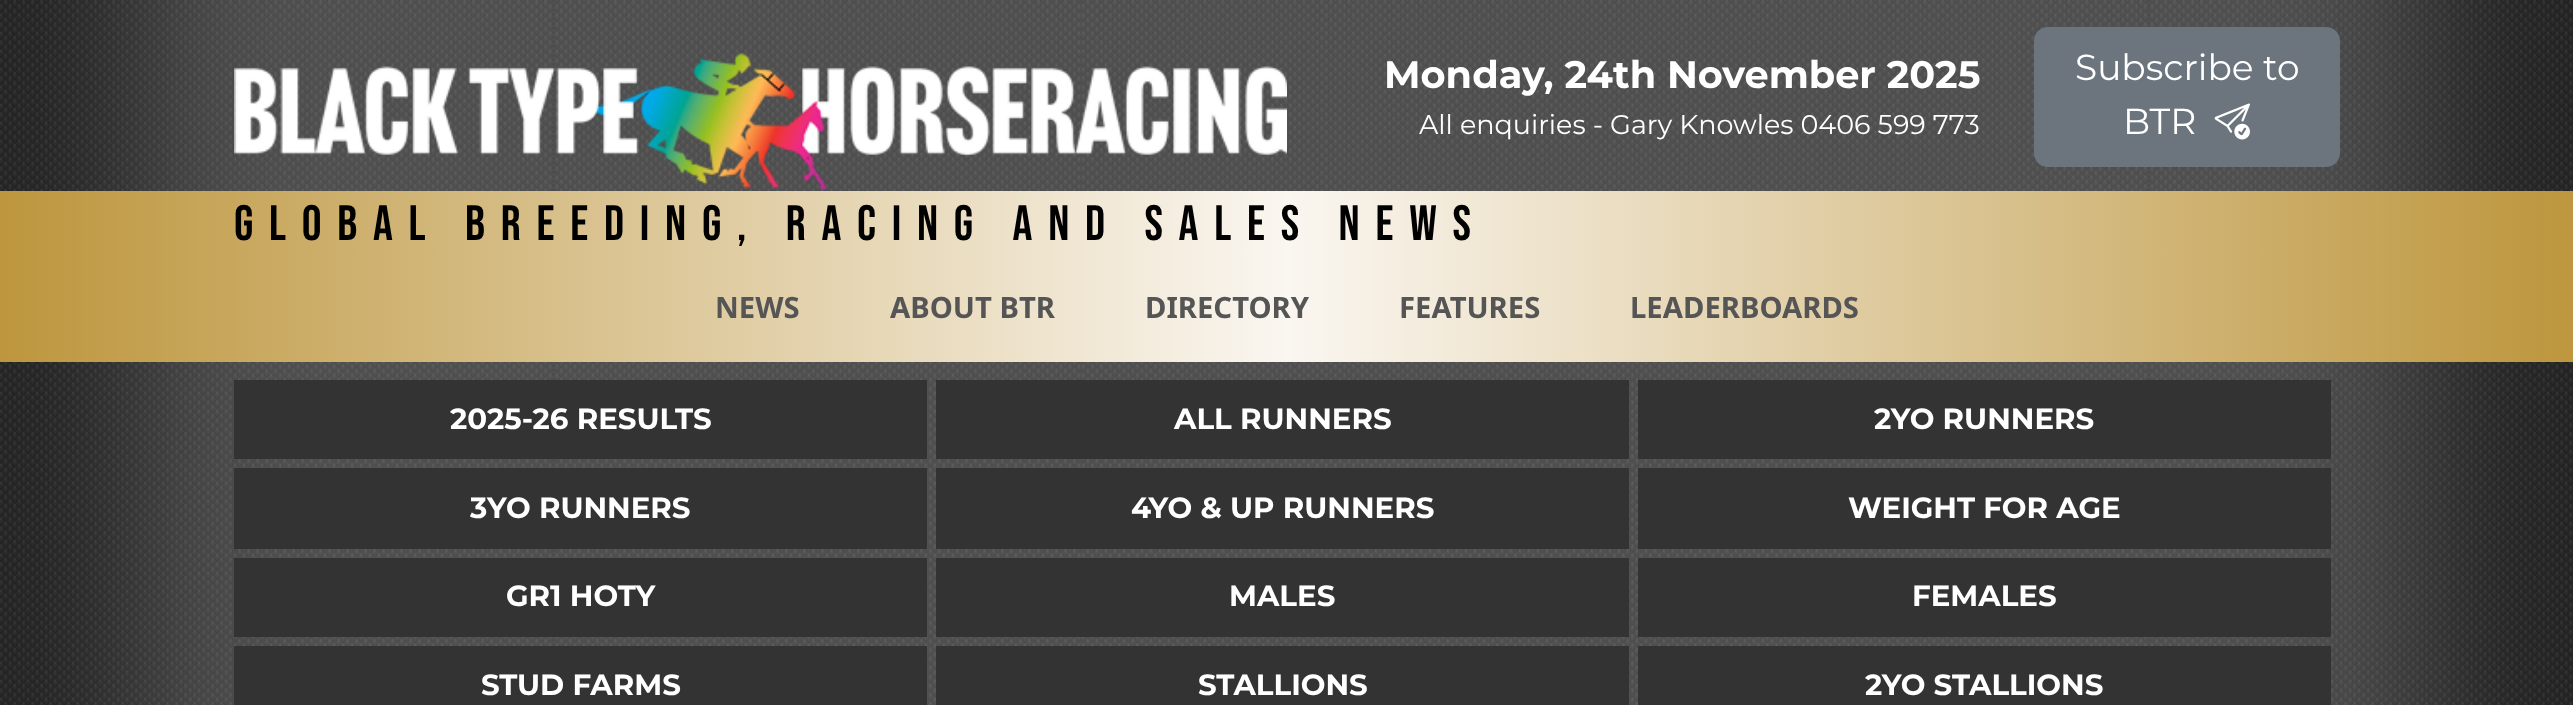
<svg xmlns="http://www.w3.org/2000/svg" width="2573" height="705">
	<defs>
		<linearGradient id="g1" gradientUnits="userSpaceOnUse" x1="0" y1="277" x2="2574" y2="277"><stop offset="0" stop-color="#BD963D" /><stop offset="0.5" stop-color="#FAF6F0" /><stop offset="1" stop-color="#BD963D" /></linearGradient>
	</defs>
	<rect width="100%" height="100%" fill="#FFFFFF" />
	<image x="0" y="0" width="2573" height="705" href="assets/img1.png" />
	<image x="234" y="52" width="1053" height="138" href="assets/img2.png" />
	<text x="1384" y="88" font-family="Montserrat" font-size="38.25" font-weight="700" fill="#FFFFFF">Monday, 24th November 2025</text>
	<text x="1419" y="134" font-family="Montserrat" font-size="27" fill="#FFFFFF">All enquiries - Gary Knowles 0406 599 773</text>
	<rect x="2035" y="28" width="304" height="138" rx="13" fill="#6C757D" stroke="#6C757D" stroke-width="2" />
	<g font-family="Montserrat" font-size="36" fill="#FFFFFF">
		<text x="2075" y="80">Subscribe to</text>
		<text x="2123" y="134">BTR</text>
	</g>
	<image x="2214" y="103" width="36" height="37" href="assets/img3.png" />
	<rect x="0" y="191" width="2573" height="171" fill="url(#g1)" />
	<text x="234" y="240" font-family="Bebas Neue" font-size="49.5" letter-spacing="15.75" fill="#000000">Global Breeding, Racing and Sales News</text>
	<g font-family="Noto Sans" font-size="29.25" font-weight="700" fill="#555555">
		<text x="715" y="318">NEWS</text>
		<text x="890" y="318">ABOUT BTR</text>
		<text x="1145" y="318">DIRECTORY</text>
		<text x="1399" y="318">FEATURES</text>
		<text x="1630" y="318">LEADERBOARDS</text>
	</g>
	<rect x="234" y="380" width="693" height="79" fill="#333333" />
	<text x="450" y="429" font-family="Montserrat" font-size="29.25" font-weight="700" fill="#FFFFFF">2025-26 RESULTS</text>
	<rect x="936" y="380" width="693" height="79" fill="#333333" />
	<text x="1174" y="429" font-family="Montserrat" font-size="29.25" font-weight="700" fill="#FFFFFF">ALL RUNNERS</text>
	<rect x="1638" y="380" width="693" height="79" fill="#333333" />
	<text x="1874" y="429" font-family="Montserrat" font-size="29.25" font-weight="700" fill="#FFFFFF">2YO RUNNERS</text>
	<rect x="234" y="468" width="693" height="81" fill="#333333" />
	<text x="470" y="518" font-family="Montserrat" font-size="29.25" font-weight="700" fill="#FFFFFF">3YO RUNNERS</text>
	<rect x="936" y="468" width="693" height="81" fill="#333333" />
	<text x="1131" y="518" font-family="Montserrat" font-size="29.25" font-weight="700" fill="#FFFFFF">4YO &amp; UP RUNNERS</text>
	<rect x="1638" y="468" width="693" height="81" fill="#333333" />
	<text x="1848" y="518" font-family="Montserrat" font-size="29.25" font-weight="700" fill="#FFFFFF">WEIGHT FOR AGE</text>
	<rect x="234" y="558" width="693" height="79" fill="#333333" />
	<text x="506" y="606" font-family="Montserrat" font-size="29.25" font-weight="700" fill="#FFFFFF">GR1 HOTY</text>
	<rect x="936" y="558" width="693" height="79" fill="#333333" />
	<text x="1229" y="606" font-family="Montserrat" font-size="29.25" font-weight="700" fill="#FFFFFF">MALES</text>
	<rect x="1638" y="558" width="693" height="79" fill="#333333" />
	<text x="1912" y="606" font-family="Montserrat" font-size="29.25" font-weight="700" fill="#FFFFFF">FEMALES</text>
	<rect x="234" y="646" width="693" height="59" fill="#333333" />
	<text x="481" y="695" font-family="Montserrat" font-size="29.25" font-weight="700" fill="#FFFFFF">STUD FARMS</text>
	<rect x="936" y="646" width="693" height="59" fill="#333333" />
	<text x="1198" y="695" font-family="Montserrat" font-size="29.25" font-weight="700" fill="#FFFFFF">STALLIONS</text>
	<rect x="1638" y="646" width="693" height="59" fill="#333333" />
	<text x="1865" y="695" font-family="Montserrat" font-size="29.25" font-weight="700" fill="#FFFFFF">2YO STALLIONS</text>
</svg>
